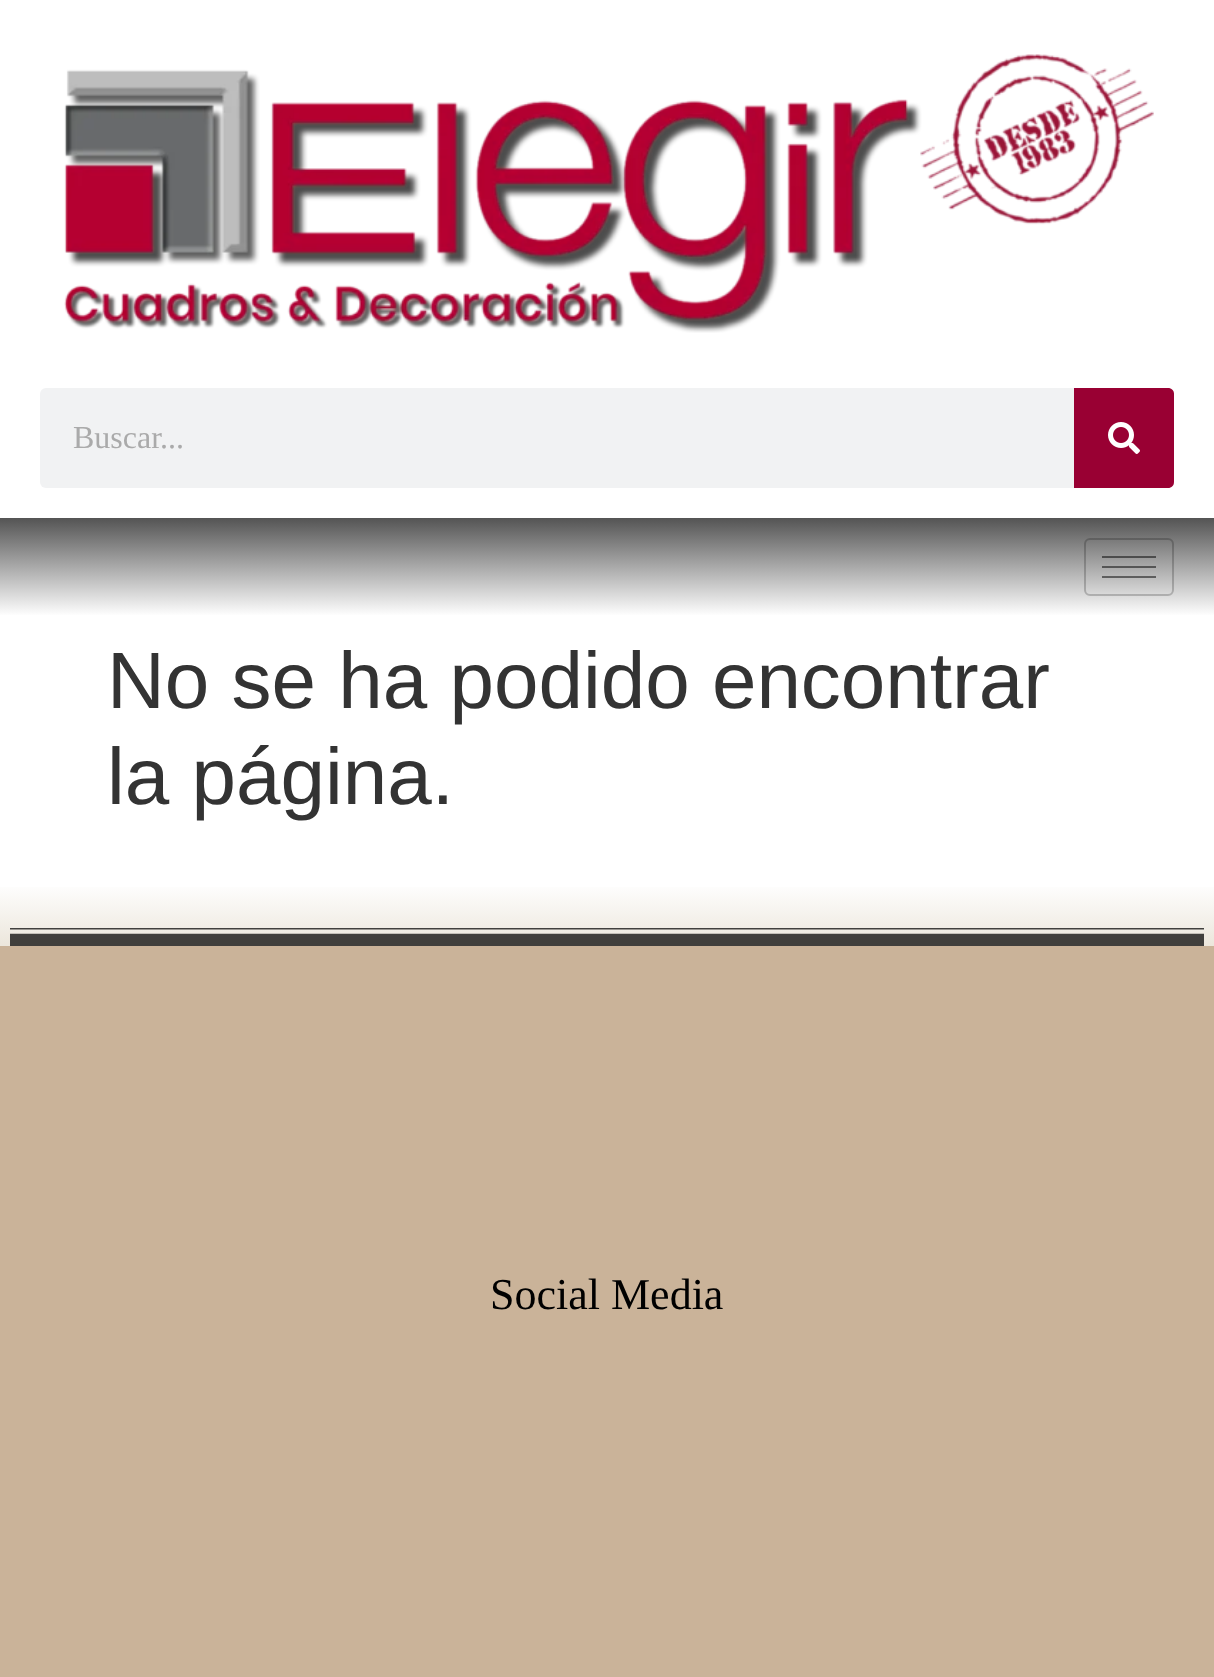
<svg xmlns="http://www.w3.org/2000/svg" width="1214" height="1677">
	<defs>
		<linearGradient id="g1" gradientUnits="userSpaceOnUse" x1="607" y1="616" x2="607" y2="518"><stop offset="0" stop-color="#FFFFFF" /><stop offset="1" stop-color="#545454" /></linearGradient>
		<linearGradient id="g2" gradientUnits="userSpaceOnUse" x1="607" y1="882" x2="607" y2="996"><stop offset="0" stop-color="#FFFFFF" /><stop offset="1" stop-color="#DDD3C0" /></linearGradient>
	</defs>
	<rect width="100%" height="100%" fill="#FFFFFF" />
	<image x="64" y="54" width="1090" height="279" href="assets/img1.png" />
	<rect x="40" y="388" width="1134" height="100" rx="6" fill="#F1F2F3" />
	<text x="73" y="448" font-family="Liberation Serif" font-size="32" fill="#AAAAAA">Buscar...</text>
	<path d="M1074 388H1168C1171.5 388 1174 390.5 1174 394V482C1174 485.5 1171.5 488 1168 488H1074Z" fill="#990033" />
	<image x="1108" y="422" width="32" height="32" href="assets/img2.png" />
	<rect x="0" y="518" width="1214" height="97" fill="url(#g1)" />
	<rect x="1085" y="539" width="88" height="56" rx="5" fill="none" stroke="#000000" stroke-opacity="0.2" stroke-width="2" />
	<rect x="1102" y="556" width="54" height="2" fill="#4C4C4C" />
	<rect x="1102" y="566" width="54" height="2" fill="#555555" />
	<rect x="1102" y="576" width="54" height="2" fill="#5E5E5E" />
	<g font-family="Liberation Sans" font-size="80" fill="#333333">
		<text x="107" y="708">No se ha podido encontrar</text>
		<text x="107" y="804">la página.</text>
	</g>
	<rect x="0" y="887" width="1214" height="59" fill="url(#g2)" />
	<image x="10" y="928" width="1194" height="18" href="assets/img3.png" />
	<rect x="0" y="946" width="1214" height="731" fill="#CAB399" />
	<text x="490" y="1309" font-family="Liberation Serif" font-size="44" fill="#000000">Social Media</text>
</svg>
